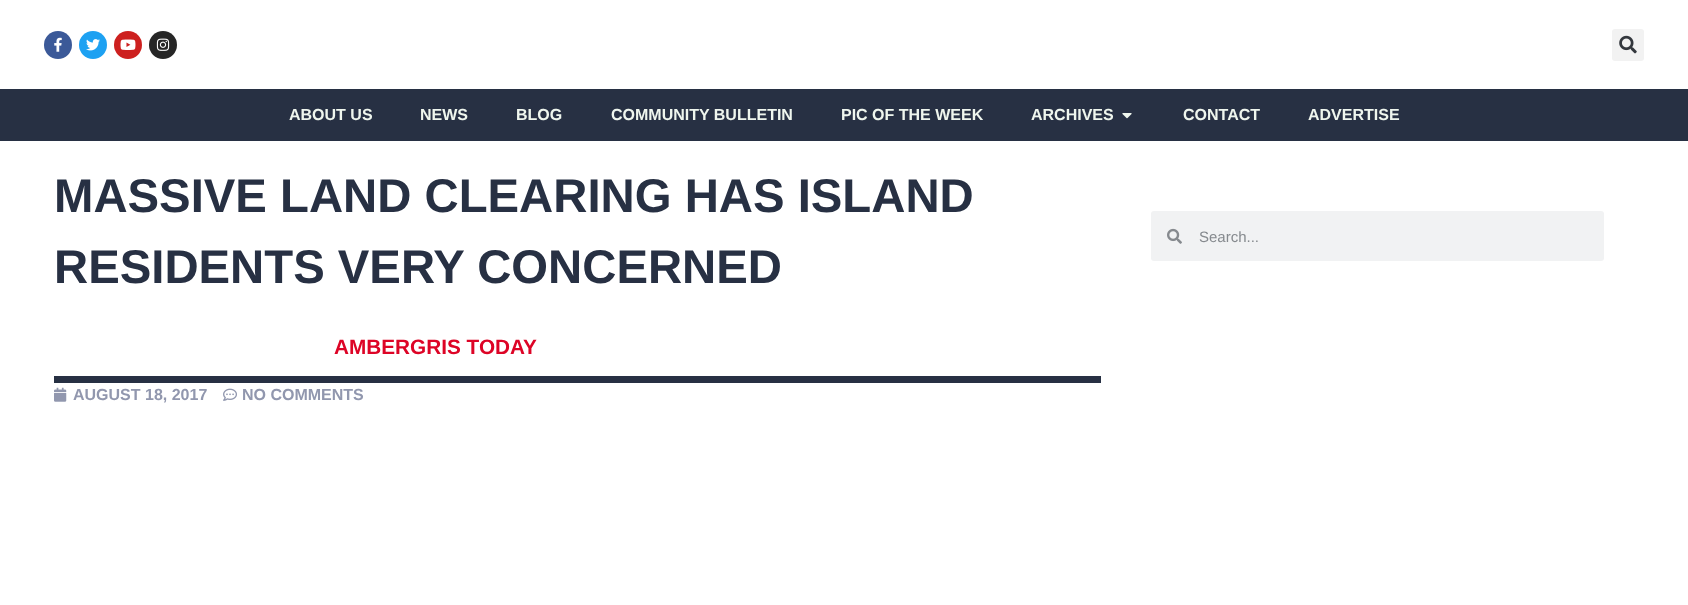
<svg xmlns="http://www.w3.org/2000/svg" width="1688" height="605">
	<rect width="100%" height="100%" fill="#FFFFFF" />
	<circle cx="58" cy="45" r="14" fill="#3B5998" />
	<image x="54" y="37" width="8" height="15" href="assets/img1.png" />
	<circle cx="93" cy="45" r="14" fill="#1DA1F2" />
	<image x="86" y="39" width="14" height="12" href="assets/img2.png" />
	<circle cx="128" cy="45" r="14" fill="#CD201F" />
	<image x="120" y="39" width="16" height="11" href="assets/img3.png" />
	<circle cx="163" cy="45" r="14" fill="#262626" />
	<image x="156" y="38" width="14" height="13" href="assets/img4.png" />
	<rect x="1612" y="29" width="32" height="32" rx="3" fill="#F2F2F2" />
	<image x="1619" y="35" width="18" height="19" href="assets/img5.png" />
	<rect x="0" y="89" width="1688" height="52" fill="#273043" />
	<g font-family="Liberation Sans" font-size="16" font-weight="700" fill="#EFF6EE">
		<text x="289" y="120">ABOUT US</text>
		<text x="420" y="120">NEWS</text>
		<text x="516" y="120">BLOG</text>
		<text x="611" y="120">COMMUNITY BULLETIN</text>
		<text x="841" y="120">PIC OF THE WEEK</text>
		<text x="1031" y="120">ARCHIVES</text>
	</g>
	<image x="1122" y="113" width="10" height="6" href="assets/img6.png" />
	<g font-family="Liberation Sans" font-size="16" font-weight="700" fill="#EFF6EE">
		<text x="1183" y="120">CONTACT</text>
		<text x="1308" y="120">ADVERTISE</text>
	</g>
	<g font-family="Liberation Sans" font-size="47.3" font-weight="700" fill="#273043">
		<text x="54" y="212">MASSIVE LAND CLEARING HAS ISLAND</text>
		<text x="54" y="283">RESIDENTS VERY CONCERNED</text>
	</g>
	<rect x="54" y="376" width="1047" height="7" fill="#273043" />
	<text x="334" y="354" font-family="Liberation Sans" font-size="20.75" font-weight="700" fill="#DD0426">AMBERGRIS TODAY</text>
	<image x="54" y="387" width="13" height="15" href="assets/img7.png" />
	<text x="73" y="400" font-family="Liberation Sans" font-size="16" font-weight="700" fill="#9197AE">AUGUST 18, 2017</text>
	<image x="223" y="388" width="14" height="13" href="assets/img8.png" />
	<text x="242" y="400" font-family="Liberation Sans" font-size="16" font-weight="700" fill="#9197AE">NO COMMENTS</text>
	<rect x="1151" y="211" width="453" height="50" rx="3" fill="#F1F2F3" />
	<image x="1167" y="228" width="15" height="16" href="assets/img9.png" />
	<text x="1199" y="242" font-family="Liberation Sans" font-size="15" fill="#868A8E">Search...</text>
</svg>
